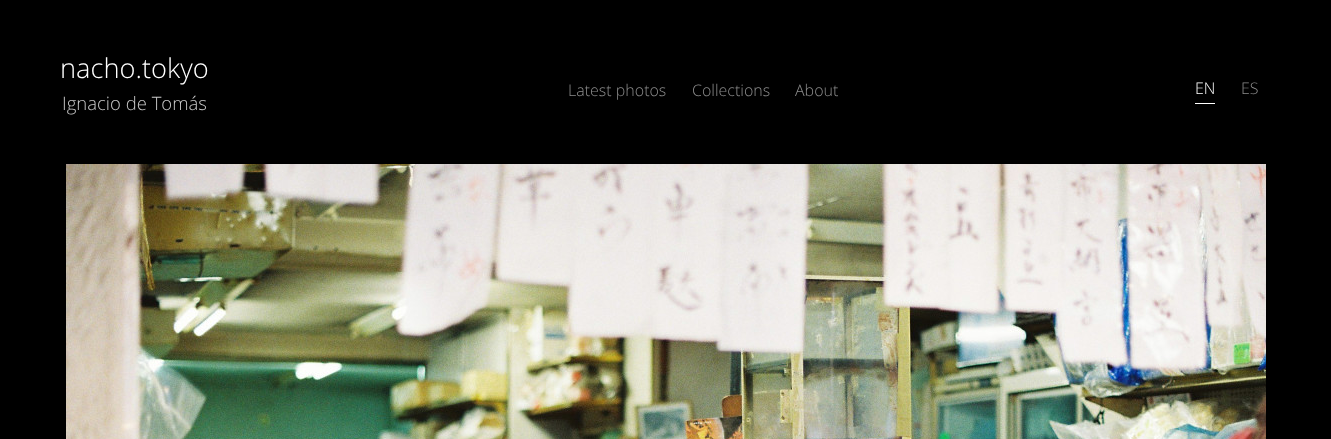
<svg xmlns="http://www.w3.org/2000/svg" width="1331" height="439">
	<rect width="100%" height="100%" fill="#000000" />
	<text x="60" y="78" font-family="Open Sans" font-size="27.25" font-weight="300" fill="#FFFFFF">nacho.tokyo</text>
	<text x="62" y="110" font-family="Open Sans" font-size="18.5" font-weight="300" fill="#C7C7C7">Ignacio de Tomás</text>
	<g font-family="Open Sans" font-size="16" font-weight="300" fill="#8C8C8C">
		<text x="568" y="96">Latest photos</text>
		<text x="692" y="96">Collections</text>
		<text x="795" y="96">About</text>
	</g>
	<text x="1195" y="94" font-family="Open Sans" font-size="16" font-weight="300" fill="#FFFFFF">EN</text>
	<rect x="1195" y="103" width="20" height="1" fill="#FFFFFF" />
	<text x="1241" y="94" font-family="Open Sans" font-size="16" font-weight="300" fill="#8C8C8C">ES</text>
	<image x="66" y="164" width="1200" height="275" href="assets/img1.png" />
</svg>
